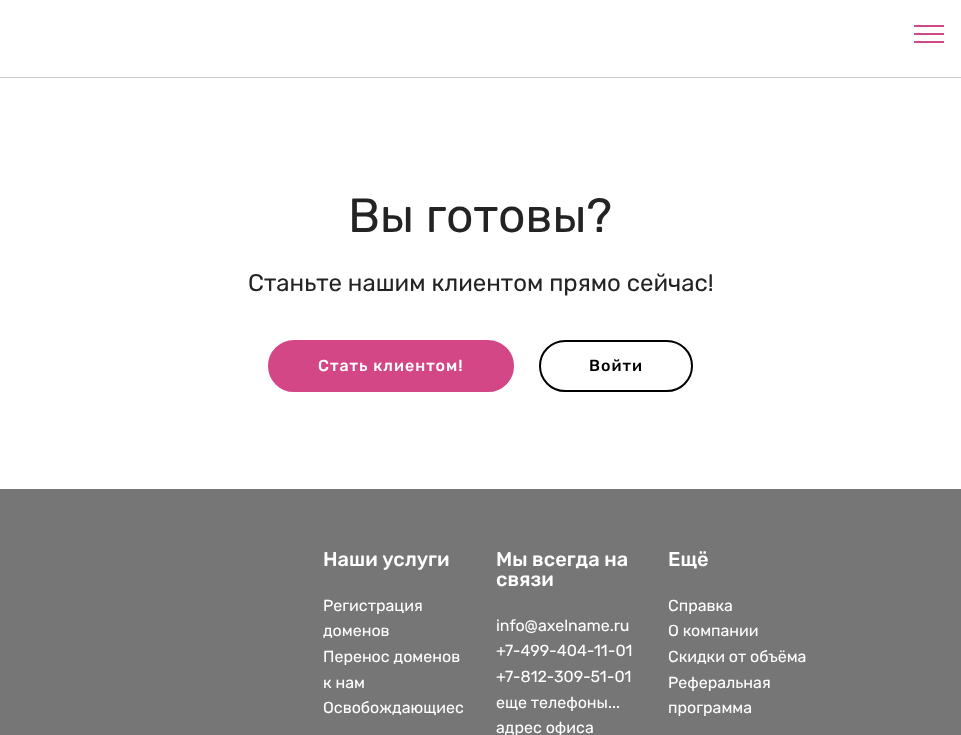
<svg xmlns="http://www.w3.org/2000/svg" width="961" height="735">
	<rect width="100%" height="100%" fill="#FFFFFF" />
	<rect x="0" y="77" width="961" height="1" fill="#CCCCCC" />
	<rect x="914" y="25" width="30" height="2" fill="#D34786" />
	<rect x="914" y="33" width="30" height="2" fill="#D34786" />
	<rect x="914" y="41" width="30" height="2" fill="#D34786" />
	<text x="348" y="232" font-family="Rubik" font-size="48" fill="#232323">Вы готовы?</text>
	<text x="248" y="291" font-family="Rubik" font-size="24" fill="#232323">Станьте нашим клиентом прямо сейчас!</text>
	<rect x="269" y="341" width="244" height="50" rx="25" fill="#D34786" stroke="#D34786" stroke-width="2" />
	<text x="318" y="371" font-family="Rubik" font-size="16" font-weight="500" letter-spacing="1" fill="#FFFFFF">Стать клиентом!</text>
	<rect x="540" y="341" width="152" height="50" rx="25" fill="none" stroke="#000000" stroke-width="2" />
	<text x="589" y="371" font-family="Rubik" font-size="16" font-weight="500" letter-spacing="1" fill="#000000">Войти</text>
	<rect x="0" y="489" width="961" height="246" fill="#767676" />
	<text x="323" y="566" font-family="Rubik" font-size="20" font-weight="500" fill="#FFFFFF">Наши услуги</text>
	<g font-family="Rubik" font-size="16" fill="#FFFFFF">
		<text x="323" y="611">Регистрация</text>
		<text x="323" y="636">доменов</text>
		<text x="323" y="662">Перенос доменов</text>
		<text x="323" y="688">к нам</text>
		<text x="323" y="713">Освобождающиес</text>
	</g>
	<g font-family="Rubik" font-size="20" font-weight="500" fill="#FFFFFF">
		<text x="496" y="566">Мы всегда на</text>
		<text x="496" y="586">связи</text>
	</g>
	<g font-family="Rubik" font-size="16" fill="#FFFFFF">
		<text x="496" y="631">info@axelname.ru</text>
		<text x="496" y="656">+7-499-404-11-01</text>
		<text x="496" y="682">+7-812-309-51-01</text>
		<text x="496" y="708">еще телефоны...</text>
		<text x="496" y="733">адрес офиса</text>
	</g>
	<text x="668" y="566" font-family="Rubik" font-size="20" font-weight="500" fill="#FFFFFF">Ещё</text>
	<g font-family="Rubik" font-size="16" fill="#FFFFFF">
		<text x="668" y="611">Справка</text>
		<text x="668" y="636">О компании</text>
		<text x="668" y="662">Скидки от объёма</text>
		<text x="668" y="688">Реферальная</text>
		<text x="668" y="713">программа</text>
	</g>
</svg>
